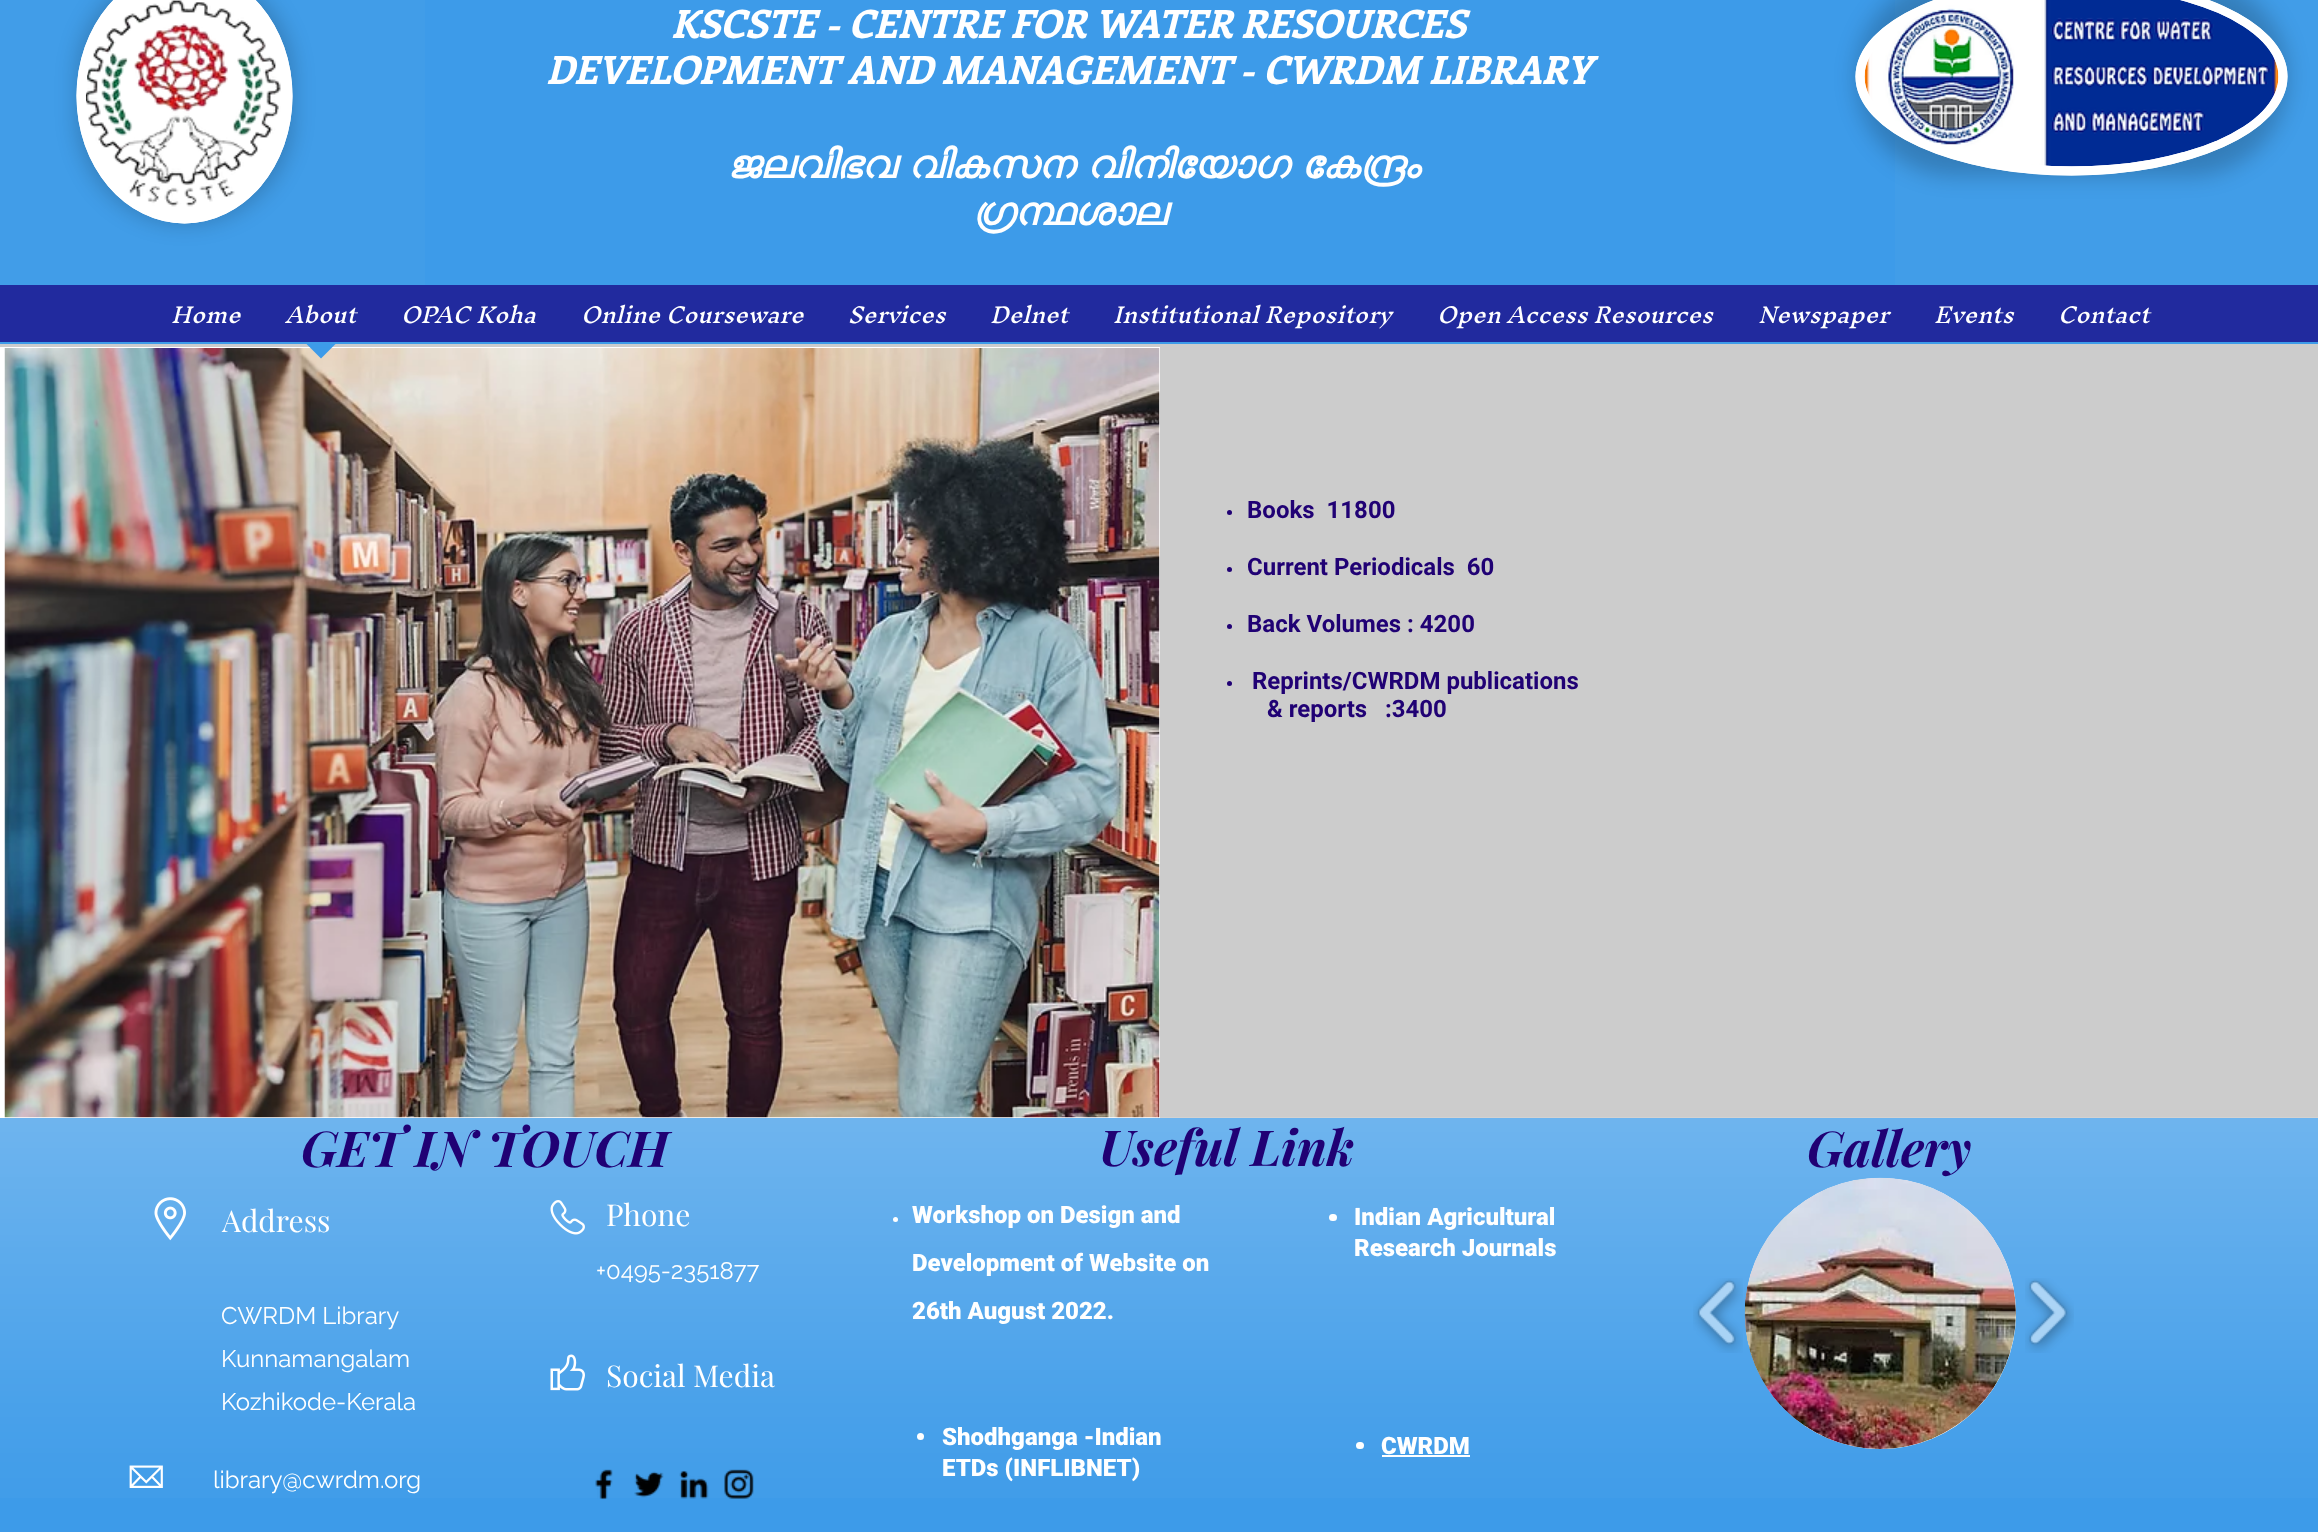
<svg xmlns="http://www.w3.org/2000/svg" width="2318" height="1532">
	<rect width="100%" height="100%" fill="#CCCCCC" />
	<rect x="0" y="0" width="2318" height="285" fill="#419DE8" />
	<rect x="425" y="0" width="1470" height="285" fill="#3D9BE9" />
	<rect x="77" y="-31" width="216" height="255" rx="108" fill="#000000" fill-opacity="0.2" filter="blur(10.5px)" />
	<ellipse cx="184.5" cy="96" rx="108" ry="127.5" fill="#FFFFFF" />
	<path d="M184.5-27C241.5-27 288 28 288 96C288 164 241.5 219 184.5 219C127.5 219 81 164 81 96C81 28 127.5-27 184.5-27Z" fill="none" stroke="#FFFFFF" stroke-width="9" />
	<image x="85" y="0" width="196" height="207" href="assets/img1.png" />
	<g font-family="Enriqueta" font-size="39" font-weight="700" font-style="italic" fill="#FFFFFF">
		<text x="671" y="38">KSCSTE - CENTRE FOR WATER RESOURCES</text>
		<text x="546" y="84">DEVELOPMENT AND MANAGEMENT - CWRDM LIBRARY</text>
	</g>
	<g font-family="FreeSans" font-size="39" font-weight="700" font-style="italic" fill="#FFFFFF">
		<text x="727" y="178" word-spacing="-3">ജലവിഭവ വികസന വിനിയോഗ കേന്ദ്രം</text>
		<text x="972" y="225">ഗ്രന്ഥശാല</text>
	</g>
	<rect x="1856" y="-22" width="432" height="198" rx="99" fill="#000000" fill-opacity="0.2" filter="blur(10.5px)" />
	<ellipse cx="2071.5" cy="76.5" rx="216" ry="99" fill="#FFFFFF" />
	<path d="M2071.5-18C2188.5-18 2283 24.5 2283 76.5C2283 128.5 2188.5 171 2071.5 171C1954.5 171 1860 128.5 1860 76.5C1860 24.5 1954.5-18 2071.5-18Z" fill="none" stroke="#FFFFFF" stroke-width="9" />
	<image x="1864" y="0" width="415" height="167" href="assets/img2.png" />
	<rect x="0" y="285" width="2318" height="57" fill="#212A9E" />
	<rect x="0" y="342" width="2318" height="2" fill="#3D9BE9" />
	<g font-family="Inknut Antiqua" font-size="21" font-style="italic" fill="#FFFFFF">
		<text x="171" y="323">Home</text>
		<text x="285" y="323">About</text>
	</g>
	<rect x="0" y="347" width="1160" height="771" fill="#FFFFFF" />
	<image x="4" y="348" width="1156" height="770" href="assets/img3.png" />
	<path d="M304.5 342H337.5L321 358.5Z" fill="#3D9BE9" />
	<g font-family="Inknut Antiqua" font-size="21" font-style="italic" fill="#FFFFFF">
		<text x="401" y="323">OPAC Koha</text>
		<text x="581" y="323">Online Courseware</text>
		<text x="848" y="323">Services</text>
		<text x="990" y="323">Delnet</text>
		<text x="1113" y="323">Institutional Repository</text>
		<text x="1437" y="323">Open Access Resources</text>
		<text x="1758" y="323">Newspaper</text>
		<text x="1934" y="323">Events</text>
		<text x="2058" y="323">Contact</text>
	</g>
	<circle cx="1229.5" cy="512.5" r="2.5" fill="#200174" />
	<text x="1247" y="518" font-family="Roboto" font-size="24" font-weight="700" fill="#200174" xml:space="preserve">Books  11800</text>
	<circle cx="1229.5" cy="569.5" r="2.5" fill="#200174" />
	<text x="1247" y="575" font-family="Roboto" font-size="24" font-weight="700" fill="#200174" xml:space="preserve">Current Periodicals  60</text>
	<circle cx="1229.5" cy="626.5" r="2.5" fill="#200174" />
	<text x="1247" y="632" font-family="Roboto" font-size="24" font-weight="700" fill="#200174">Back Volumes : 4200</text>
	<circle cx="1229.5" cy="683.5" r="2.5" fill="#200174" />
	<g font-family="Roboto" font-size="24" font-weight="700" fill="#200174">
		<text x="1252" y="689">Reprints/CWRDM publications</text>
		<text x="1267" y="717" xml:space="preserve">&amp; reports   :3400</text>
	</g>
	<rect x="0" y="1118" width="2318" height="414" fill="#3D9BE9" />
	<image x="0" y="1117" width="2318" height="381" href="assets/img4.png" />
	<g font-family="Playfair Display" font-size="49.5" font-weight="700" font-style="italic" fill="#200174">
		<text x="301" y="1167">GET IN TOUCH</text>
		<text x="1099" y="1166">Useful Link</text>
		<text x="1807" y="1167">Gallery</text>
	</g>
	<image x="154" y="1197" width="32" height="44" href="assets/img5.png" />
	<text x="222" y="1232" font-family="Playfair Display" font-size="30" fill="#FFFFFF">Address</text>
	<image x="550" y="1200" width="35" height="35" href="assets/img6.png" />
	<text x="606" y="1226" font-family="Playfair Display" font-size="30" fill="#FFFFFF">Phone</text>
	<circle cx="895.5" cy="1219.5" r="2.5" fill="#FFFFFF" />
	<g font-family="Roboto" font-size="24" font-weight="900" fill="#FFFFFF">
		<text x="912" y="1223">Workshop on Design and</text>
		<text x="912" y="1271">Development of Website on</text>
		<text x="912" y="1319">26th August 2022.</text>
	</g>
	<rect x="1329" y="1214" width="8" height="7" rx="3.5" fill="#FFFFFF" />
	<g font-family="Roboto" font-size="24" font-weight="900" fill="#FFFFFF">
		<text x="1354" y="1225">Indian Agricultural</text>
		<text x="1354" y="1256">Research Journals</text>
	</g>
	<image x="1693" y="1278" width="50" height="75" href="assets/img7.png" />
	<circle cx="1880.5" cy="1313.5" r="135.5" fill="#FFFFFF" />
	<image x="1744" y="1177" width="272" height="272" href="assets/img8.png" />
	<image x="2025" y="1278" width="49" height="75" href="assets/img9.png" />
	<g font-family="Raleway" font-size="24" fill="#FFFFFF">
		<text x="596" y="1279">+0495-2351877</text>
		<text x="221" y="1324">CWRDM Library</text>
		<text x="221" y="1367">Kunnamangalam</text>
		<text x="221" y="1410">Kozhikode-Kerala</text>
	</g>
	<image x="550" y="1354" width="35" height="37" href="assets/img10.png" />
	<text x="606" y="1387" font-family="Playfair Display" font-size="30" fill="#FFFFFF">Social Media</text>
	<circle cx="920.5" cy="1436.5" r="3.5" fill="#FFFFFF" />
	<g font-family="Roboto" font-size="24" font-weight="900" fill="#FFFFFF">
		<text x="942" y="1445">Shodhganga -Indian</text>
		<text x="942" y="1476">ETDs (INFLIBNET)</text>
	</g>
	<rect x="1356" y="1442" width="8" height="7" rx="3.5" fill="#FFFFFF" />
	<text x="1381" y="1454" font-family="Roboto" font-size="24" font-weight="900" fill="#FFFFFF">CWRDM</text>
	<rect x="1382" y="1455" width="88" height="2" fill="#FFFFFF" />
	<image x="129" y="1465" width="34" height="23" href="assets/img11.png" />
	<text x="213" y="1488" font-family="Raleway" font-size="24" fill="#FFFFFF">library@cwrdm.org</text>
	<image x="595" y="1469" width="18" height="31" href="assets/img12.png" />
	<image x="634" y="1471" width="30" height="27" href="assets/img13.png" />
	<image x="679" y="1470" width="30" height="29" href="assets/img14.png" />
	<image x="724" y="1469" width="30" height="30" href="assets/img15.png" />
</svg>
